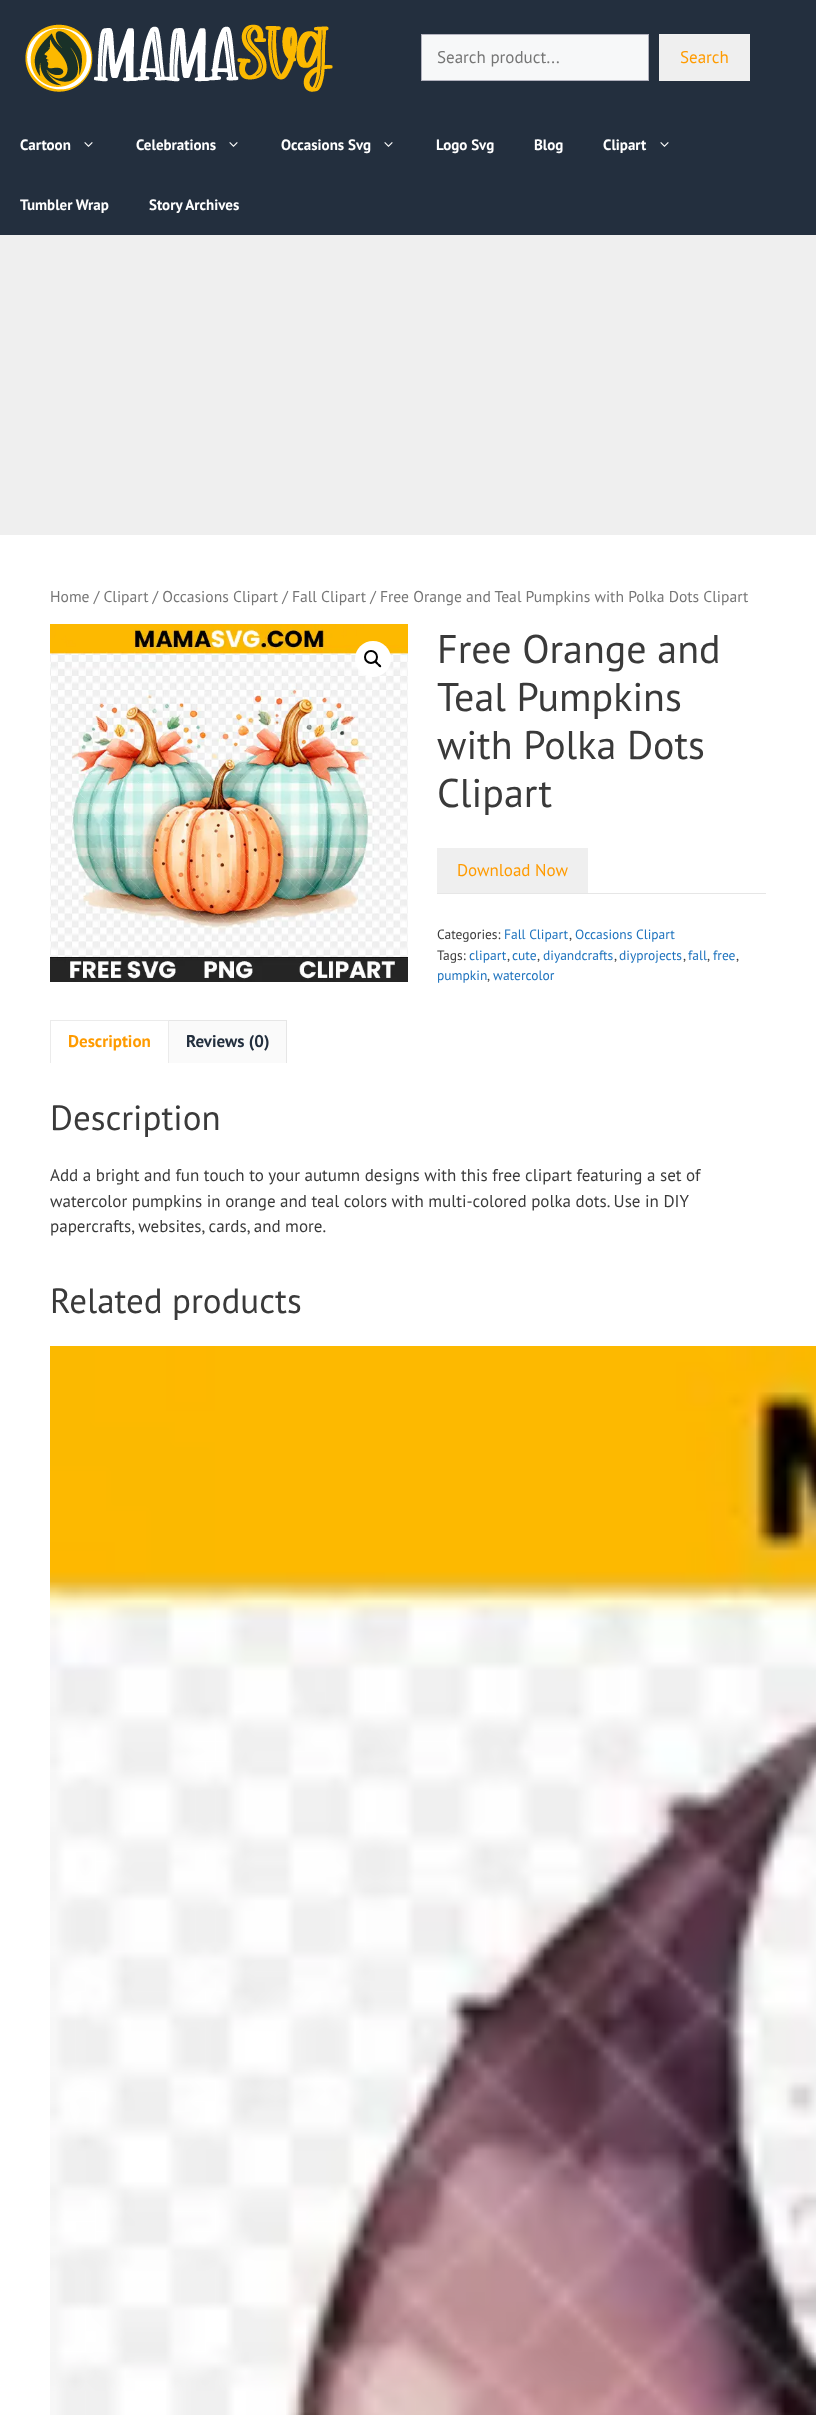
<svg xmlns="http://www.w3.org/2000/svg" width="816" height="2415">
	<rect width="100%" height="100%" fill="#EFEFEF" />
	<rect x="0" y="0" width="816" height="235" fill="#232F3E" />
	<image x="25" y="24" width="308" height="68" href="assets/img1.png" />
	<rect x="421.5" y="34.5" width="227" height="46" fill="#F7F8F9" stroke="#B2B2BE" />
	<text x="437" y="63" font-family="PT Sans" font-size="17" fill="#767676">Search product...</text>
	<rect x="659" y="34" width="91" height="47" fill="#EFEFEF" />
	<text x="680" y="63" font-family="PT Sans" font-size="17" fill="#FF9B00">Search</text>
	<text x="20" y="150" font-family="PT Sans" font-size="15" font-weight="700" fill="#FFFFFF">Cartoon</text>
	<image x="84" y="142" width="9" height="5" href="assets/img2.png" />
	<text x="136" y="150" font-family="PT Sans" font-size="15" font-weight="700" fill="#FFFFFF">Celebrations</text>
	<image x="229" y="142" width="9" height="5" href="assets/img2.png" />
	<text x="281" y="150" font-family="PT Sans" font-size="15" font-weight="700" fill="#FFFFFF">Occasions Svg</text>
	<image x="384" y="142" width="9" height="5" href="assets/img2.png" />
	<g font-family="PT Sans" font-size="15" font-weight="700" fill="#FFFFFF">
		<text x="436" y="150">Logo Svg</text>
		<text x="534" y="150">Blog</text>
		<text x="603" y="150">Clipart</text>
	</g>
	<image x="660" y="142" width="9" height="5" href="assets/img2.png" />
	<g font-family="PT Sans" font-size="15" font-weight="700" fill="#FFFFFF">
		<text x="20" y="210">Tumbler Wrap</text>
		<text x="149" y="210">Story Archives</text>
	</g>
	<rect x="0" y="535" width="816" height="1880" fill="#FFFFFF" />
	<text x="50" y="602" font-family="PT Sans" font-size="15.65" fill="#767676">Home / Clipart / Occasions Clipart / Fall Clipart / Free Orange and Teal Pumpkins with Polka Dots Clipart</text>
	<image x="50" y="624" width="358" height="358" href="assets/img3.png" />
	<circle cx="373" cy="659" r="18" fill="#FFFFFF" />
	<circle cx="371" cy="657" r="6" fill="none" stroke="#000000" stroke-width="2" />
	<path d="M375 661C376.5 660 378 663 378.5 663.5C379.5 664 382 665.5 381 667C379.5 668 378 665.5 377.5 665C376.5 664 374 662.5 375 661Z" fill="#000000" />
	<g font-family="PT Sans" font-size="40" fill="#3A3A3A">
		<text x="437" y="663">Free Orange and</text>
		<text x="437" y="711">Teal Pumpkins</text>
		<text x="437" y="759">with Polka Dots</text>
		<text x="437" y="807">Clipart</text>
	</g>
	<rect x="437" y="848" width="151" height="45" fill="#EFEFEF" />
	<text x="457" y="876" font-family="PT Sans" font-size="17" fill="#FF9B00">Download Now</text>
	<rect x="437" y="893" width="329" height="1" fill="#E6E6E6" />
	<text x="437" y="939" font-family="PT Sans" font-size="13.5" fill="#3A3A3A">Categories:</text>
	<text x="504" y="939" font-family="PT Sans" font-size="13.5" fill="#1E73BE">Fall Clipart</text>
	<text x="569" y="939" font-family="PT Sans" font-size="13.5" fill="#3A3A3A">,</text>
	<text x="575" y="939" font-family="PT Sans" font-size="13.5" fill="#1E73BE">Occasions Clipart</text>
	<text x="437" y="960" font-family="PT Sans" font-size="13.5" fill="#3A3A3A">Tags:</text>
	<text x="469" y="960" font-family="PT Sans" font-size="13.5" fill="#1E73BE">clipart</text>
	<text x="507" y="960" font-family="PT Sans" font-size="13.5" fill="#3A3A3A">,</text>
	<text x="512" y="960" font-family="PT Sans" font-size="13.5" fill="#1E73BE">cute</text>
	<text x="537" y="960" font-family="PT Sans" font-size="13.5" fill="#3A3A3A">,</text>
	<text x="543" y="960" font-family="PT Sans" font-size="13.5" fill="#1E73BE">diyandcrafts</text>
	<text x="614" y="960" font-family="PT Sans" font-size="13.5" fill="#3A3A3A">,</text>
	<text x="619" y="960" font-family="PT Sans" font-size="13.5" fill="#1E73BE">diyprojects</text>
	<text x="683" y="960" font-family="PT Sans" font-size="13.5" fill="#3A3A3A">,</text>
	<text x="688" y="960" font-family="PT Sans" font-size="13.5" fill="#1E73BE">fall</text>
	<text x="707" y="960" font-family="PT Sans" font-size="13.5" fill="#3A3A3A">,</text>
	<text x="713" y="960" font-family="PT Sans" font-size="13.5" fill="#1E73BE">free</text>
	<text x="736" y="960" font-family="PT Sans" font-size="13.5" fill="#3A3A3A">,</text>
	<text x="437" y="980" font-family="PT Sans" font-size="13.5" fill="#1E73BE">pumpkin</text>
	<text x="487" y="980" font-family="PT Sans" font-size="13.5" fill="#3A3A3A">,</text>
	<text x="493" y="980" font-family="PT Sans" font-size="13.5" fill="#1E73BE">watercolor</text>
	<path d="M50 1020H169L168 1021H51Z" fill="#EBEBEB" />
	<path d="M169 1020V1063H168V1021Z" fill="#000000" fill-opacity="0.08" />
	<path d="M50 1063V1020L51 1021V1063Z" fill="#000000" fill-opacity="0.08" />
	<text x="68" y="1047" font-family="PT Sans" font-size="17" font-weight="700" fill="#FF9B00">Description</text>
	<rect x="169" y="1020" width="118" height="43" fill="#FAFAFA" />
	<path d="M169 1020H287L286 1021H169Z" fill="#E6E6E6" />
	<path d="M287 1020V1063H286V1021Z" fill="#000000" fill-opacity="0.08" />
	<text x="186" y="1047" font-family="PT Sans" font-size="17" font-weight="700" fill="#232F3E">Reviews (0)</text>
	<text x="50" y="1130" font-family="PT Sans" font-size="35" fill="#3A3A3A">Description</text>
	<g font-family="PT Sans" font-size="17" fill="#3A3A3A">
		<text x="50" y="1181">Add a bright and fun touch to your autumn designs with this free clipart featuring a set of</text>
		<text x="50" y="1207">watercolor pumpkins in orange and teal colors with multi-colored polka dots. Use in DIY</text>
		<text x="50" y="1232">papercrafts, websites, cards, and more.</text>
	</g>
	<text x="50" y="1313" font-family="PT Sans" font-size="35" fill="#3A3A3A">Related products</text>
	<image x="50" y="1346" width="766" height="1069" href="assets/img4.png" />
</svg>
